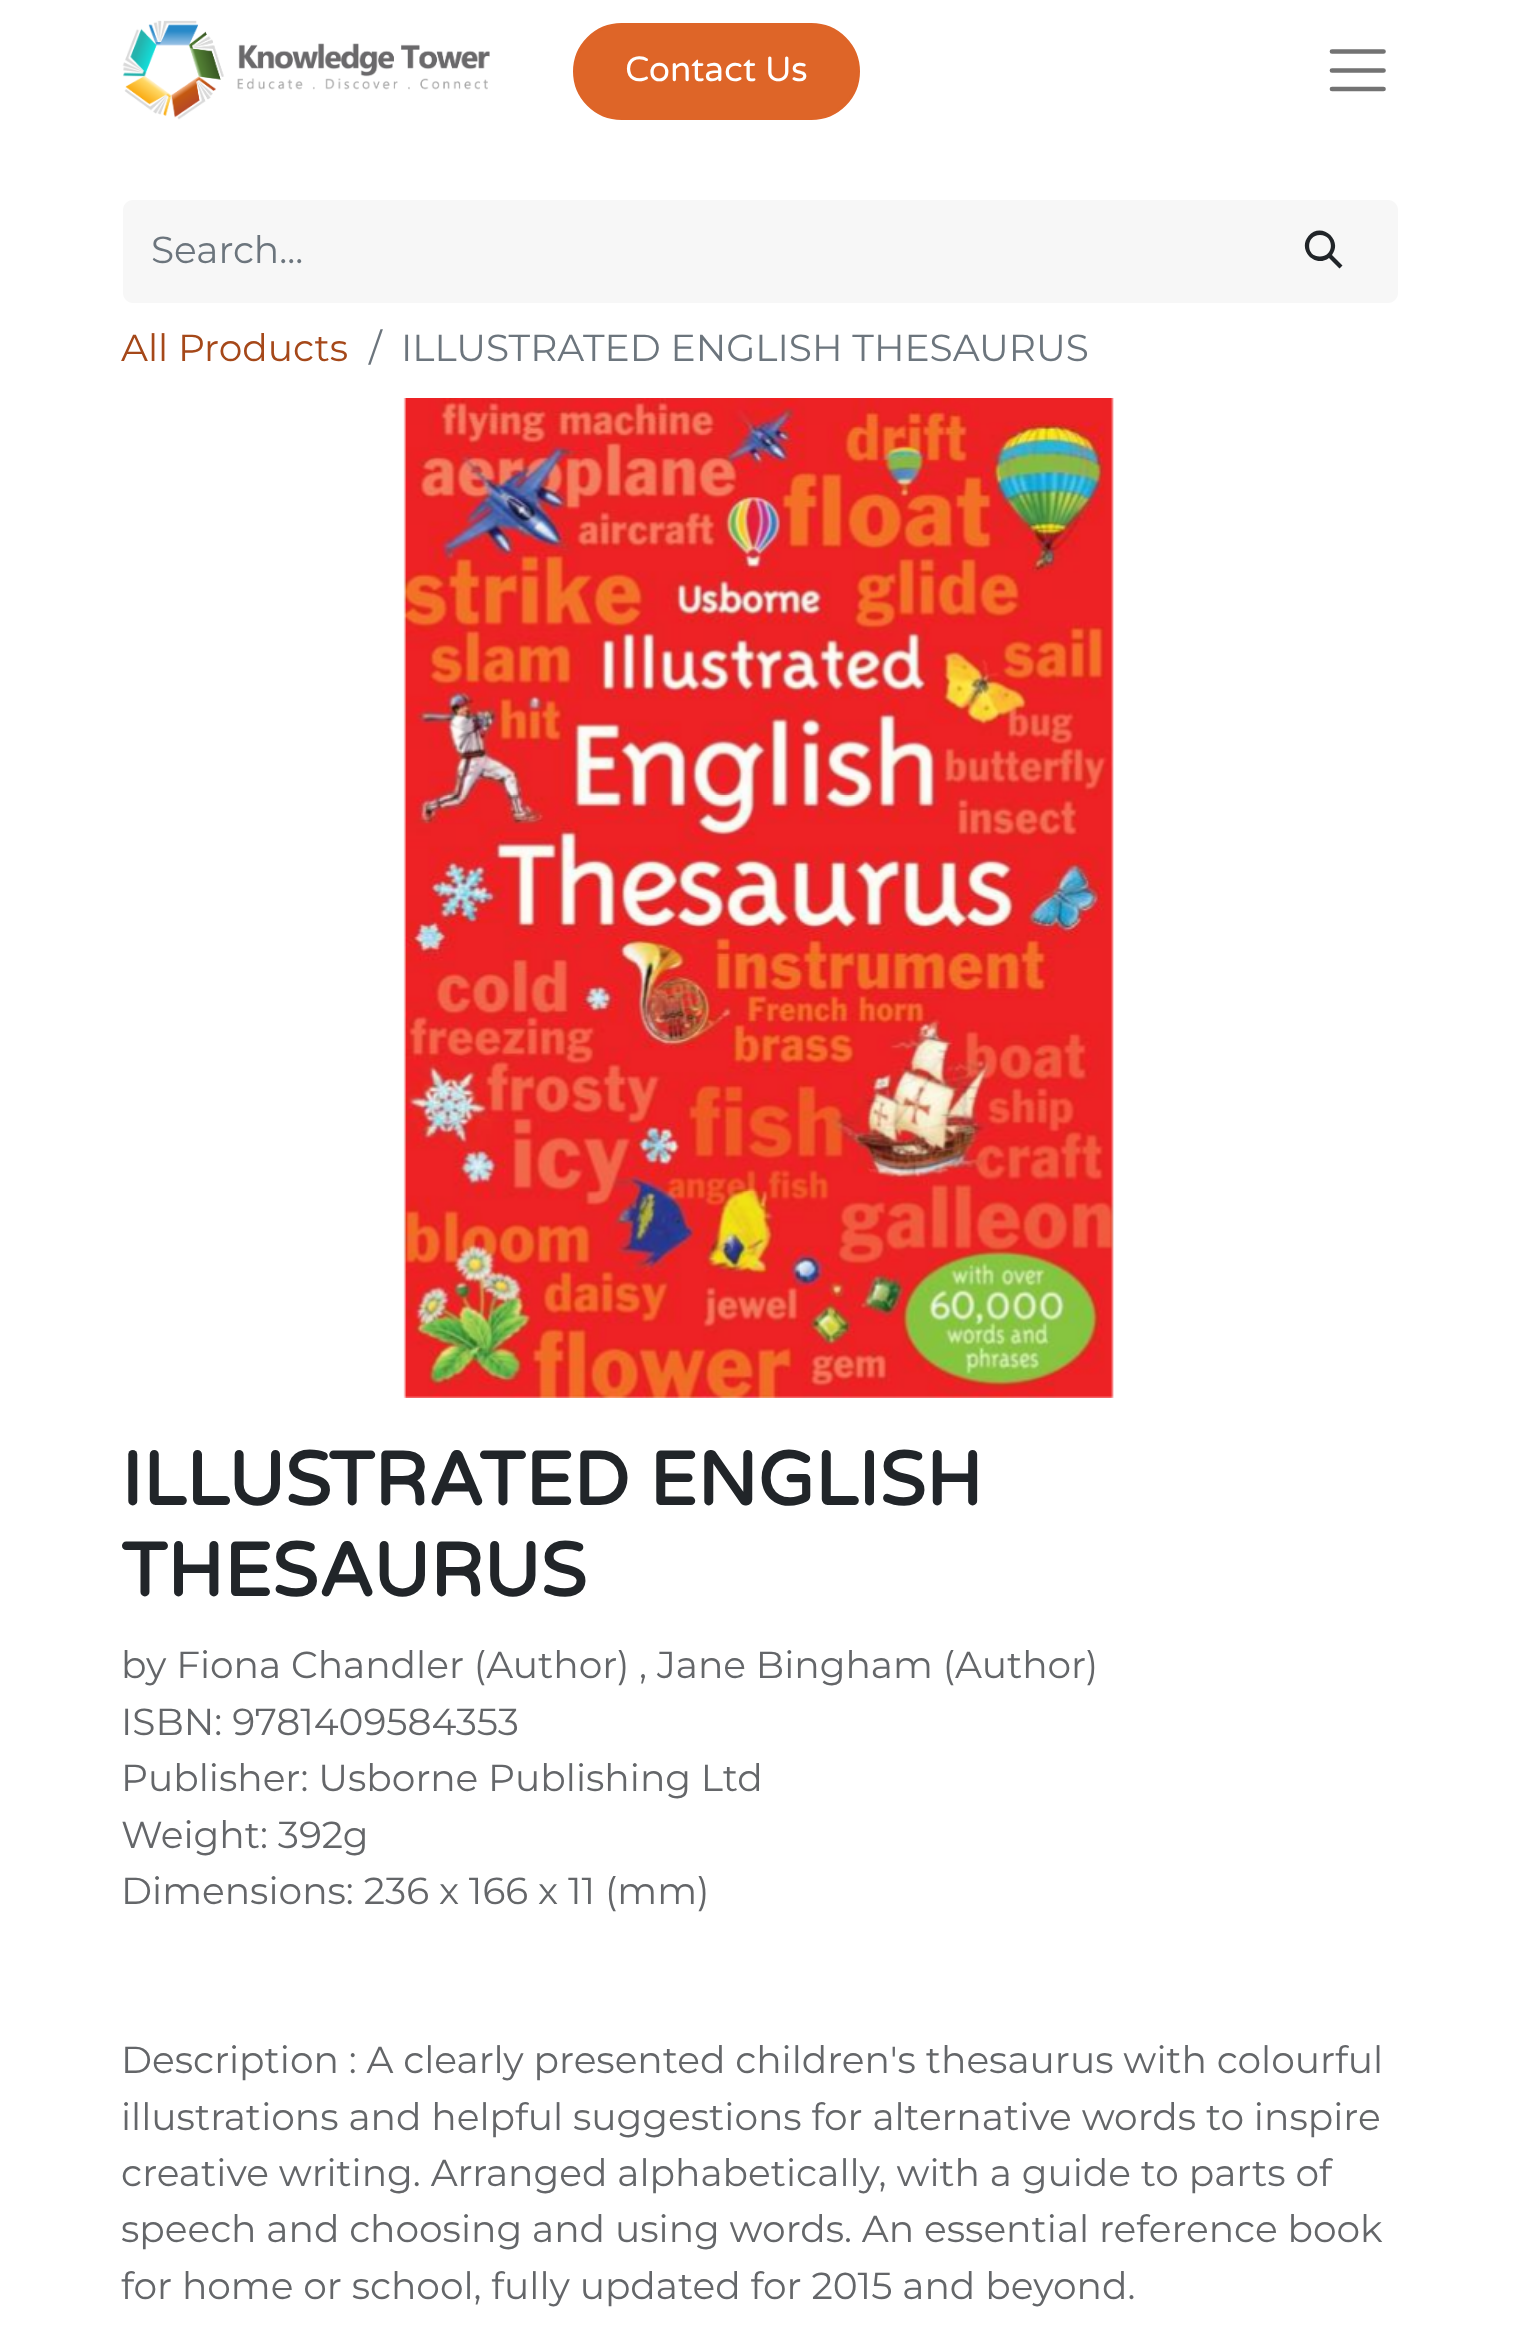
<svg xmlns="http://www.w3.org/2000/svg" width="1516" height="2336">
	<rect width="100%" height="100%" fill="#FFFFFF" />
	<image x="122" y="20" width="368" height="100" href="assets/img1.png" />
	<rect x="574.5" y="24.5" width="284" height="94" rx="47" fill="#DE6528" stroke="#DE6528" stroke-width="3" />
	<text x="625" y="81" font-family="Varela Round" font-size="35" fill="#FFFFFF">Contact Us</text>
	<path d="M1332 51.5H1383.5M1332 70.5H1383.5M1332 89H1383.5" fill="none" stroke="#737373" stroke-width="4.7" stroke-linecap="round" />
	<path d="M133 200H1255V303H133C127.5 303 123 298.5 123 293V210C123 204.5 127.5 200 133 200Z" fill="#F7F7F7" />
	<text x="151" y="263" font-family="Montserrat" font-size="37.6" fill="#6C757D">Search...</text>
	<path d="M1253 200H1388C1393.5 200 1398 204.5 1398 210V293C1398 298.5 1393.5 303 1388 303H1253Z" fill="#F7F7F7" />
	<path d="M1308.5 236C1320.5 221 1343.5 239 1332 255L1342.5 265.5L1339.5 268.5L1329 258C1315 268.5 1297 250 1308.5 236ZM1320 235C1305.5 235 1305.5 257 1320 256.5C1334.5 256.5 1334.5 235 1320 235Z" fill="#212529" />
	<text x="121" y="361" font-family="Montserrat" font-size="37.6" fill="#A54819">All Products</text>
	<g font-family="Montserrat" font-size="37.6" fill="#6C757D">
		<text x="369" y="361">/</text>
		<text x="401" y="361">ILLUSTRATED ENGLISH THESAURUS</text>
	</g>
	<image x="403" y="398" width="711" height="1000" href="assets/img2.png" />
	<g font-family="Varela Round" font-size="75.25" font-weight="700" fill="#212529">
		<text x="121" y="1505">ILLUSTRATED ENGLISH</text>
		<text x="121" y="1596">THESAURUS</text>
	</g>
	<g font-family="Montserrat" font-size="37.6" fill="#646669">
		<text x="121" y="1678">by Fiona Chandler (Author) , Jane Bingham (Author)</text>
		<text x="121" y="1735">ISBN: 9781409584353</text>
		<text x="121" y="1791">Publisher: Usborne Publishing Ltd</text>
		<text x="121" y="1848">Weight: 392g</text>
		<text x="121" y="1904">Dimensions: 236 x 166 x 11 (mm)</text>
		<text x="121" y="2073">Description : A clearly presented children's thesaurus with colourful</text>
		<text x="121" y="2130">illustrations and helpful suggestions for alternative words to inspire</text>
		<text x="121" y="2186">creative writing. Arranged alphabetically, with a guide to parts of</text>
		<text x="121" y="2242">speech and choosing and using words. An essential reference book</text>
		<text x="121" y="2299">for home or school, fully updated for 2015 and beyond.</text>
	</g>
</svg>
